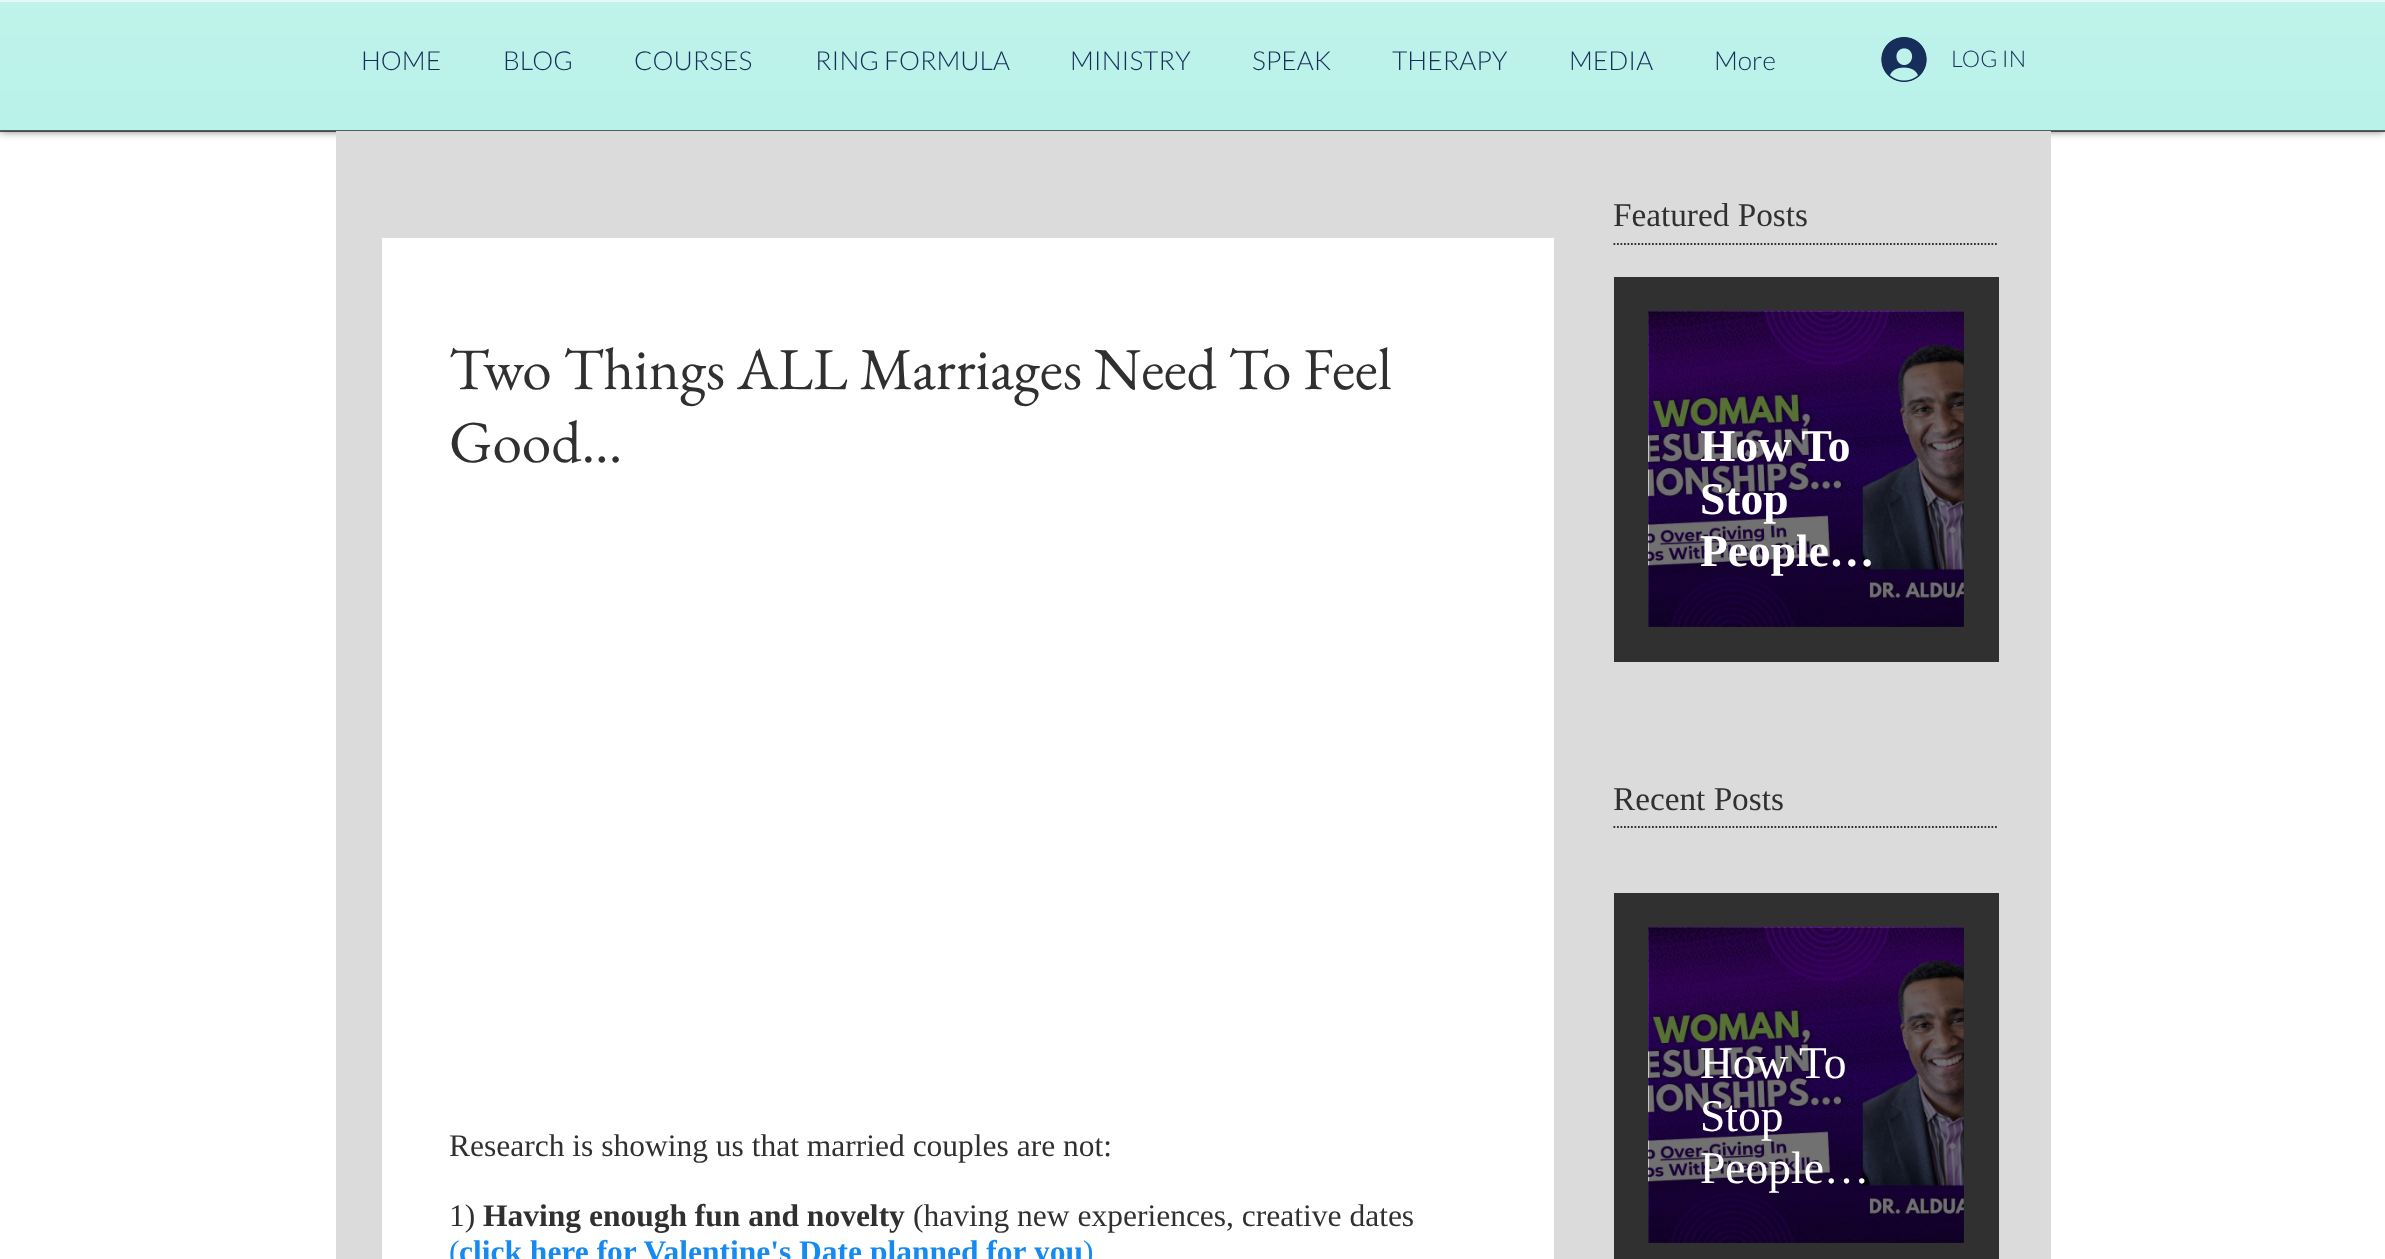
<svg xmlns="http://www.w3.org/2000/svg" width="2385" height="1259">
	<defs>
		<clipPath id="clip1"><rect x="1701" y="422" width="210" height="157" /></clipPath>
	</defs>
	<rect width="100%" height="100%" fill="#FFFFFF" />
	<rect x="0" y="0" width="2385" height="131" fill="#000000" fill-opacity="0.6" filter="blur(4.5px)" />
	<rect x="0" y="2" width="2385" height="129" fill="#A9EFE4" />
	<image x="0" y="2" width="2385" height="129" href="assets/img1.png" />
	<rect x="0" y="130" width="2385" height="2" fill="#000000" fill-opacity="0.6" />
	<rect x="0" y="0" width="2385" height="2" fill="#E5FAF7" />
	<g font-family="Lato" font-size="26.25" font-weight="300" fill="#162E59">
		<text x="361" y="70">HOME</text>
		<text x="503" y="70">BLOG</text>
		<text x="634" y="70">COURSES</text>
		<text x="815" y="70">RING FORMULA</text>
		<text x="1070" y="70">MINISTRY</text>
		<text x="1252" y="70">SPEAK</text>
		<text x="1392" y="70">THERAPY</text>
		<text x="1569" y="70">MEDIA</text>
		<text x="1714" y="70">More</text>
	</g>
	<image x="1881" y="37" width="46" height="45" href="assets/img2.png" />
	<text x="1951" y="67" font-family="Lato" font-size="23" font-weight="300" fill="#162E59">LOG IN</text>
	<rect x="336" y="131" width="1715" height="1128" fill="#DBDBDB" />
	<rect x="382" y="238" width="1172" height="1021" fill="#FFFFFF" />
	<g font-family="EB Garamond" font-size="59.5" fill="#303030">
		<text x="449" y="389">Two Things ALL Marriages Need To Feel</text>
		<text x="449" y="462">Good...</text>
	</g>
	<g font-family="Liberation Serif" font-size="31.5" fill="#303030">
		<text x="449" y="1156">Research is showing us that married couples are not:</text>
		<text x="449" y="1226">1)</text>
	</g>
	<text x="483" y="1226" font-family="Liberation Serif" font-size="31.5" font-weight="700" fill="#303030">Having enough fun and novelty</text>
	<text x="913" y="1226" font-family="Liberation Serif" font-size="31.5" fill="#303030">(having new experiences, creative dates</text>
	<text x="449" y="1262" font-family="Liberation Serif" font-size="31.5" fill="#178AF0">(</text>
	<text x="459" y="1262" font-family="Liberation Serif" font-size="31.5" font-weight="700" fill="#178AF0">click here for Valentine's Date planned for you</text>
	<text x="1083" y="1262" font-family="Liberation Serif" font-size="31.5" fill="#178AF0">)</text>
	<text x="1613" y="226" font-family="Liberation Serif" font-size="33.25" fill="#303030">Featured Posts</text>
	<path d="M1613.5 244H1998.5" fill="none" stroke="#303030" stroke-width="1.8" stroke-dasharray="1.75 1.75" />
	<rect x="1614" y="277" width="385" height="385" fill="#303030" />
	<rect x="1649" y="312" width="315" height="315" fill="#161616" />
	<image x="1648" y="311" width="316" height="316" href="assets/img3.png" />
	<image x="1648" y="311" width="316" height="316" href="assets/img4.png" />
	<g clip-path="url(#clip1)">
		<text x="1700" y="461" font-family="Liberation Serif" font-size="45.5" font-weight="700" fill="#FFFFFF">How To</text>
	</g>
	<g font-family="Liberation Serif" font-size="45.5" font-weight="700" fill="#FFFFFF">
		<text x="1700" y="514">Stop</text>
		<text x="1700" y="566">People…</text>
	</g>
	<text x="1613" y="810" font-family="Liberation Serif" font-size="33.25" fill="#303030">Recent Posts</text>
	<path d="M1613.5 827H1998.5" fill="none" stroke="#303030" stroke-width="1.8" stroke-dasharray="1.75 1.75" />
	<rect x="1614" y="893" width="385" height="366" fill="#303030" />
	<rect x="1649" y="928" width="315" height="315" fill="#161616" />
	<image x="1648" y="927" width="316" height="316" href="assets/img5.png" />
	<image x="1648" y="927" width="316" height="316" href="assets/img6.png" />
	<g font-family="Liberation Serif" font-size="45.5" fill="#FFFFFF">
		<text x="1700" y="1078">How To</text>
		<text x="1700" y="1131">Stop</text>
		<text x="1700" y="1183">People…</text>
	</g>
</svg>
